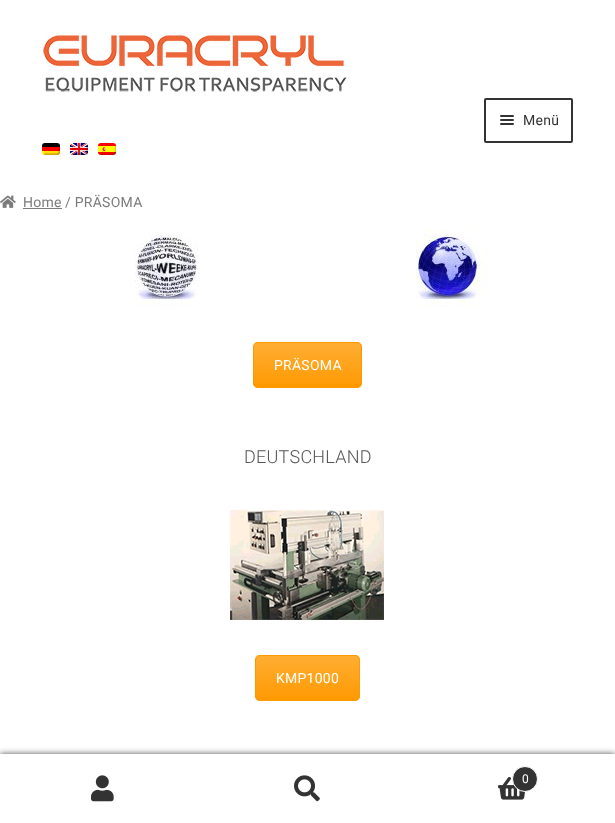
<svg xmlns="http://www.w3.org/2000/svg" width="615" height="823">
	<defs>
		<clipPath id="clip1"><rect x="253" y="342" width="109" height="46" rx="5" /></clipPath>
		<linearGradient id="g1" gradientUnits="userSpaceOnUse" x1="308" y1="343" x2="308" y2="387"><stop offset="0" stop-color="#FFFFFF" stop-opacity="0.2" /><stop offset="1" stop-color="#FFFFFF" stop-opacity="0.01" /></linearGradient>
		<clipPath id="clip2"><rect x="255" y="655" width="105" height="46" rx="5" /></clipPath>
		<linearGradient id="g2" gradientUnits="userSpaceOnUse" x1="308" y1="656" x2="308" y2="700"><stop offset="0" stop-color="#FFFFFF" stop-opacity="0.2" /><stop offset="1" stop-color="#FFFFFF" stop-opacity="0.01" /></linearGradient>
	</defs>
	<rect width="100%" height="100%" fill="#FFFFFF" />
	<image x="43" y="35" width="304" height="57" href="assets/img1.png" />
	<rect x="485" y="99" width="87" height="43" rx="1" fill="none" stroke="#333333" stroke-width="2" />
	<rect x="500" y="115" width="14" height="2" rx="1" fill="#333333" />
	<rect x="500" y="119" width="14" height="2" rx="1" fill="#333333" />
	<text x="523" y="125" font-family="Roboto" font-size="14" letter-spacing="0.25" fill="#333333">Menü</text>
	<rect x="500" y="123" width="14" height="2" rx="1" fill="#333333" />
	<image x="42" y="143" width="18" height="12" href="assets/img2.png" />
	<image x="70" y="143" width="18" height="12" href="assets/img3.png" />
	<image x="98" y="143" width="18" height="12" href="assets/img4.png" />
	<image x="0" y="195" width="16" height="13" href="assets/img5.png" />
	<text x="23" y="207" font-family="Roboto" font-size="14" letter-spacing="0.25" fill="#7C7C7C">Home</text>
	<rect x="23" y="208" width="39" height="1" fill="#7C7C7C" />
	<text x="65" y="207" font-family="Roboto" font-size="14" letter-spacing="0.25" fill="#7C7C7C">/ PRÄSOMA</text>
	<image x="135" y="235" width="64" height="72" href="assets/img6.png" />
	<image x="408" y="227" width="80" height="80" href="assets/img7.png" />
	<rect x="253" y="342" width="109" height="46" rx="5" fill="#FF9900" />
	<g clip-path="url(#clip1)">
		<rect x="253" y="343" width="109" height="41" fill="url(#g1)" />
	</g>
	<rect x="253.5" y="342.5" width="108" height="45" rx="4.5" fill="none" stroke="#FF9900" />
	<text x="274" y="370" font-family="Roboto" font-size="14" letter-spacing="0.25" fill="#FFFFFF">PRÄSOMA</text>
	<text x="244" y="463" font-family="Roboto" font-size="18" font-weight="300" letter-spacing="0.25" fill="#555555">DEUTSCHLAND</text>
	<image x="230" y="510" width="154" height="110" href="assets/img8.png" />
	<rect x="255" y="655" width="105" height="46" rx="5" fill="#FF9900" />
	<g clip-path="url(#clip2)">
		<rect x="255" y="656" width="105" height="41" fill="url(#g2)" />
	</g>
	<rect x="255.5" y="655.5" width="104" height="45" rx="4.5" fill="none" stroke="#FF9900" />
	<text x="276" y="683" font-family="Roboto" font-size="14" letter-spacing="0.25" fill="#FFFFFF">KMP1000</text>
	<rect x="0" y="754" width="615" height="69" fill="#000000" fill-opacity="0.7" filter="blur(3px)" />
	<rect x="0" y="754" width="615" height="1" fill="#FFFFFF" />
	<rect x="0" y="755" width="615" height="68" fill="#FFFFFF" />
	<image x="91" y="775" width="23" height="27" href="assets/img9.png" />
	<image x="294" y="775" width="26" height="27" href="assets/img10.png" />
	<image x="498" y="777" width="28" height="23" href="assets/img11.png" />
	<circle cx="525" cy="779" r="12.5" fill="#333333" stroke="#FFFFFF" />
	<text x="522" y="783" font-family="Roboto" font-size="12" letter-spacing="0.25" fill="#FFFFFF">0</text>
</svg>
